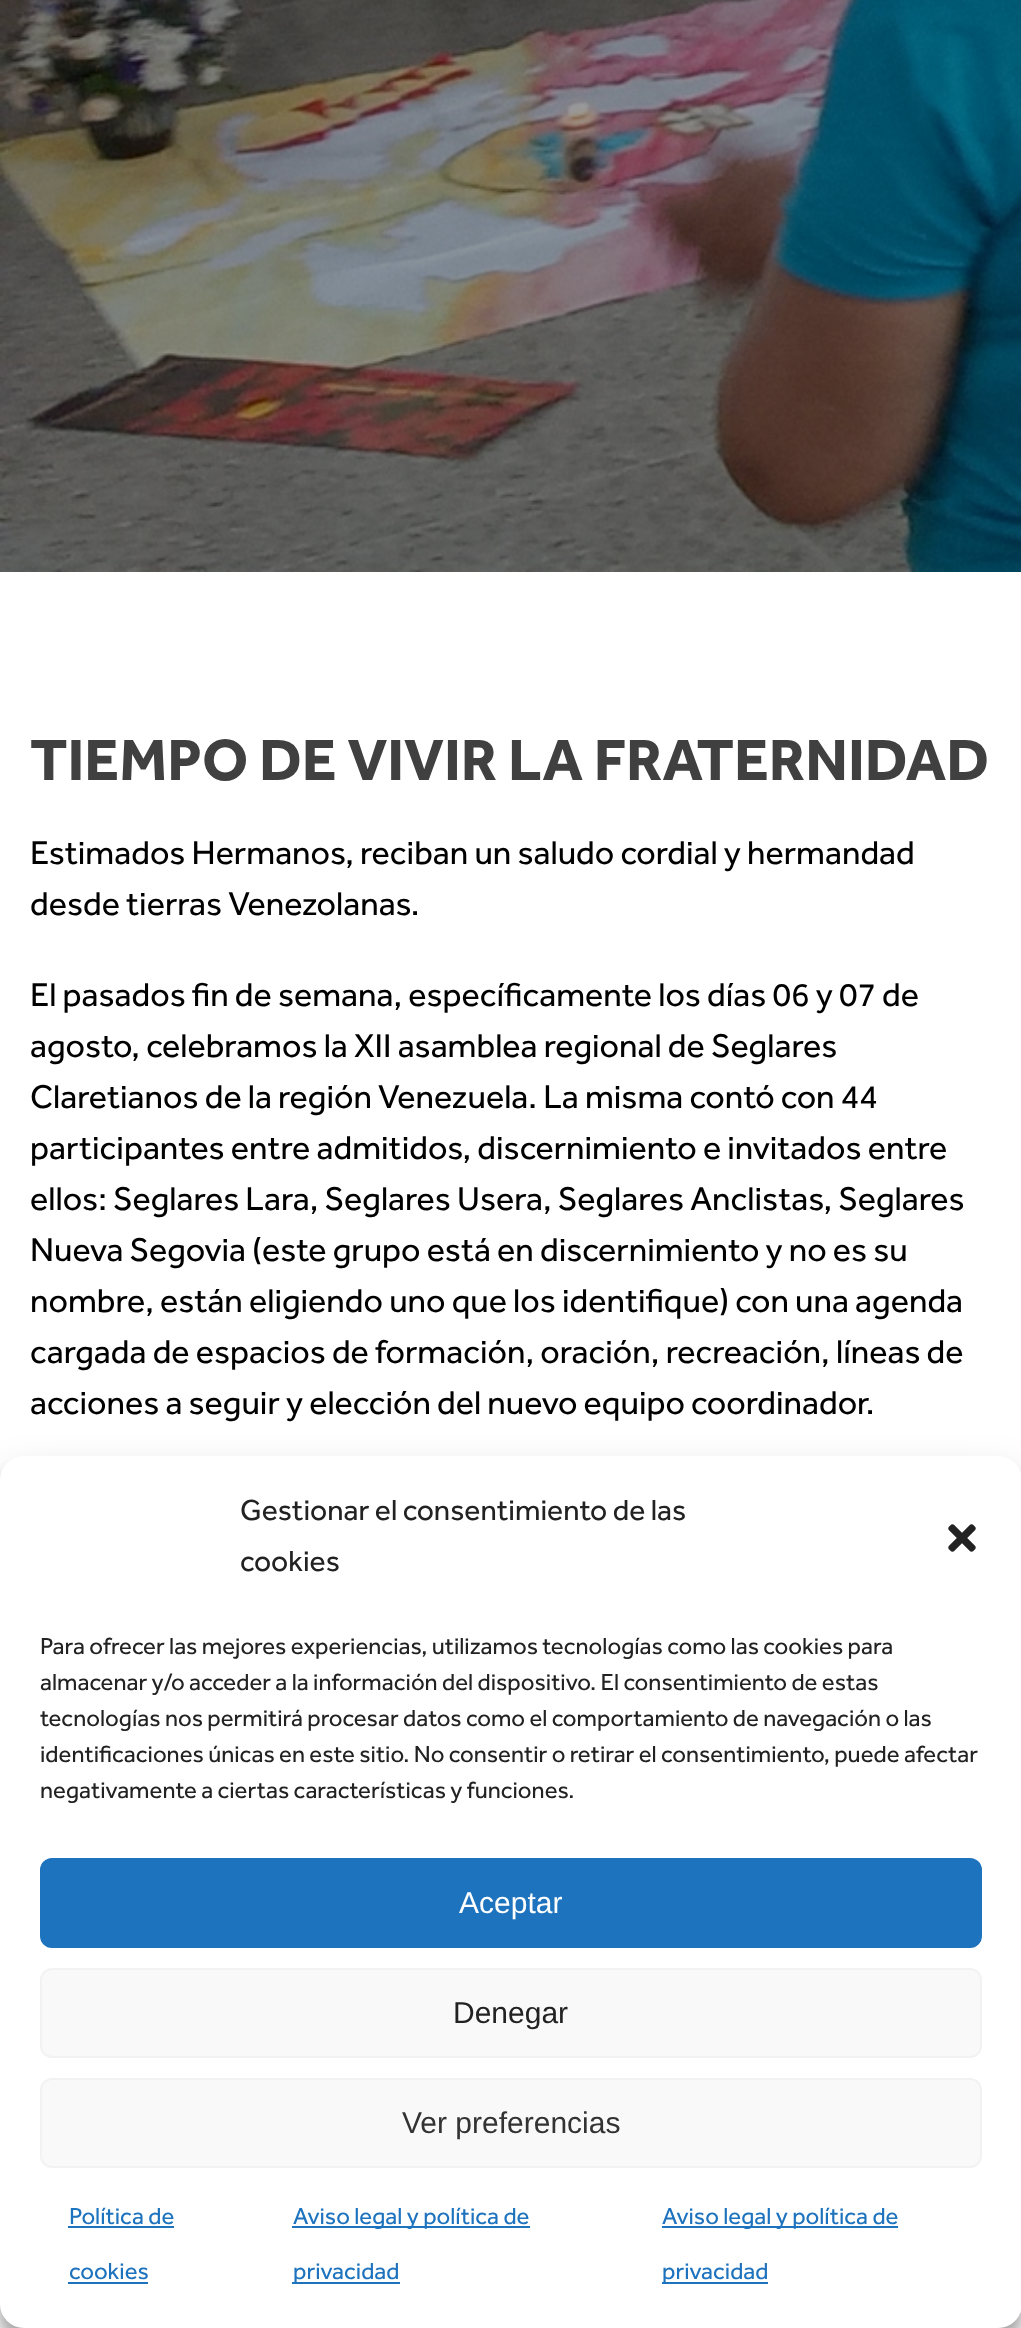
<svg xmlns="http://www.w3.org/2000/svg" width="1021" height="2328">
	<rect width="100%" height="100%" fill="#FFFFFF" />
	<image x="0" y="0" width="1021" height="572" href="assets/img1.png" />
	<text x="30" y="780" font-family="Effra" font-size="60" font-weight="700" fill="#404040">TIEMPO DE VIVIR LA FRATERNIDAD</text>
	<g font-family="Effra" font-size="34" fill="#000000">
		<text x="30" y="864">Estimados Hermanos, reciban un saludo cordial y hermandad</text>
		<text x="30" y="915">desde tierras Venezolanas.</text>
		<text x="30" y="1006">El pasados fin de semana, específicamente los días 06 y 07 de</text>
		<text x="30" y="1057">agosto, celebramos la XII asamblea regional de Seglares</text>
		<text x="30" y="1108">Claretianos de la región Venezuela. La misma contó con 44</text>
		<text x="30" y="1159">participantes entre admitidos, discernimiento e invitados entre</text>
		<text x="30" y="1210">ellos: Seglares Lara, Seglares Usera, Seglares Anclistas, Seglares</text>
		<text x="30" y="1261">Nueva Segovia (este grupo está en discernimiento y no es su</text>
		<text x="30" y="1312">nombre, están eligiendo uno que los identifique) con una agenda</text>
		<text x="30" y="1363">cargada de espacios de formación, oración, recreación, líneas de</text>
		<text x="30" y="1414">acciones a seguir y elección del nuevo equipo coordinador.</text>
	</g>
	<rect x="0" y="1468" width="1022" height="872" rx="24" fill="#000000" fill-opacity="0.23" filter="blur(6px)" />
	<rect x="0" y="1476" width="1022" height="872" rx="24" fill="#000000" fill-opacity="0.19" filter="blur(20px)" />
	<rect x="0" y="1456" width="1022" height="872" rx="24" fill="#FFFFFF" />
	<g font-family="Effra" font-size="30" fill="#222222">
		<text x="240" y="1520">Gestionar el consentimiento de las</text>
		<text x="240" y="1571">cookies</text>
	</g>
	<image x="948" y="1524" width="28" height="28" href="assets/img2.png" />
	<g font-family="Effra" font-size="24" fill="#222222">
		<text x="40" y="1654">Para ofrecer las mejores experiencias, utilizamos tecnologías como las cookies para</text>
		<text x="40" y="1690">almacenar y/o acceder a la información del dispositivo. El consentimiento de estas</text>
		<text x="40" y="1726">tecnologías nos permitirá procesar datos como el comportamiento de navegación o las</text>
		<text x="40" y="1762">identificaciones únicas en este sitio. No consentir o retirar el consentimiento, puede afectar</text>
		<text x="40" y="1798">negativamente a ciertas características y funciones.</text>
	</g>
	<rect x="41" y="1859" width="940" height="88" rx="11" fill="#1E73BE" stroke="#1E73BE" stroke-width="2" />
	<text x="459" y="1913" font-family="Liberation Sans" font-size="30" fill="#FFFFFF">Aceptar</text>
	<rect x="41" y="1969" width="940" height="88" rx="11" fill="#F9F9F9" stroke="#F2F2F2" stroke-width="2" />
	<text x="453" y="2023" font-family="Liberation Sans" font-size="30" fill="#222222">Denegar</text>
	<rect x="41" y="2079" width="940" height="88" rx="11" fill="#F9F9F9" stroke="#F2F2F2" stroke-width="2" />
	<text x="402" y="2133" font-family="Liberation Sans" font-size="30" fill="#333333">Ver preferencias</text>
	<text x="69" y="2224" font-family="Effra" font-size="24" fill="#1E73BE">Política de</text>
	<rect x="68" y="2226" width="106" height="2" fill="#1E73BE" />
	<text x="69" y="2279" font-family="Effra" font-size="24" fill="#1E73BE">cookies</text>
	<rect x="68" y="2282" width="80" height="2" fill="#1E73BE" />
	<rect x="292" y="2226" width="238" height="2" fill="#1E73BE" />
	<text x="293" y="2224" font-family="Effra" font-size="24" fill="#1E73BE">Aviso legal y política de</text>
	<rect x="292" y="2282" width="108" height="2" fill="#1E73BE" />
	<text x="293" y="2279" font-family="Effra" font-size="24" fill="#1E73BE">privacidad</text>
	<rect x="662" y="2226" width="236" height="2" fill="#1E73BE" />
	<text x="662" y="2224" font-family="Effra" font-size="24" fill="#1E73BE">Aviso legal y política de</text>
	<rect x="662" y="2282" width="106" height="2" fill="#1E73BE" />
	<text x="662" y="2279" font-family="Effra" font-size="24" fill="#1E73BE">privacidad</text>
</svg>
